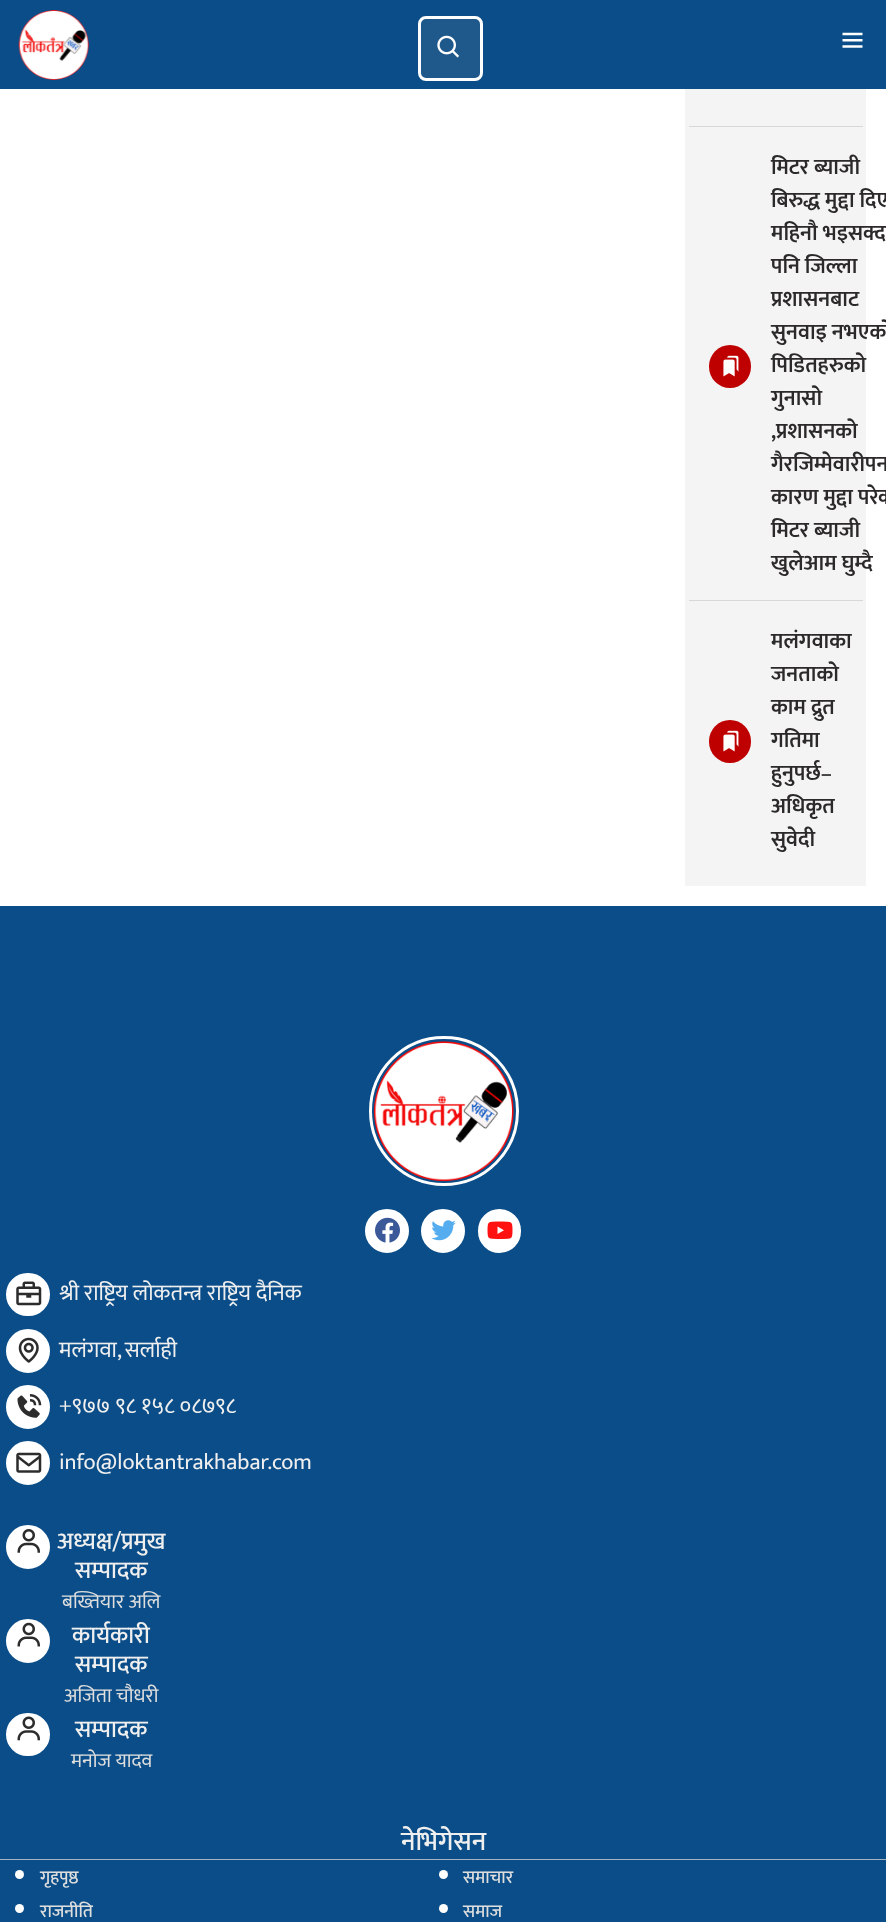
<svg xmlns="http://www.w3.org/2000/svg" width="886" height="1922">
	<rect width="100%" height="100%" fill="#FFFFFF" />
	<rect x="0" y="0" width="886" height="89" fill="#0A4D88" />
	<image x="18" y="10" width="71" height="70" href="assets/img1.png" />
	<rect x="419.5" y="17.5" width="62" height="62" rx="6.5" fill="#1F598C" stroke="#FEFEFE" stroke-width="3" />
	<image x="437" y="35" width="22" height="23" href="assets/img2.png" />
	<image x="842" y="32" width="21" height="16" href="assets/img3.png" />
	<rect x="685" y="89" width="181" height="797" fill="#F4F4F4" />
	<rect x="689" y="126" width="174" height="1" fill="#D7D7D7" />
	<rect x="689" y="600" width="174" height="1" fill="#D7D7D7" />
	<rect x="709" y="345" width="42" height="43" rx="21" fill="#BF0001" />
	<image x="723" y="355" width="16" height="22" href="assets/img4.png" />
	<g font-family="Mukta" font-size="22" font-weight="600" fill="#2B2929">
		<text x="771" y="174">मिटर ब्याजी</text>
		<text x="771" y="207">बिरुद्ध मुद्दा दिए</text>
		<text x="771" y="240">महिनौ भइसक्दा</text>
		<text x="771" y="273">पनि जिल्ला</text>
		<text x="771" y="306">प्रशासनबाट</text>
		<text x="771" y="339">सुनवाइ नभएको</text>
		<text x="771" y="372">पिडितहरुको</text>
		<text x="771" y="405">गुनासो</text>
		<text x="771" y="438">,प्रशासनको</text>
		<text x="771" y="471">गैरजिम्मेवारीपन</text>
		<text x="771" y="504">कारण मुद्दा परेक</text>
		<text x="771" y="537">मिटर ब्याजी</text>
		<text x="771" y="570">खुलेआम घुम्दै</text>
	</g>
	<rect x="709" y="720" width="42" height="43" rx="21" fill="#BF0001" />
	<image x="723" y="730" width="16" height="22" href="assets/img4.png" />
	<g font-family="Mukta" font-size="22" font-weight="600" fill="#2B2929">
		<text x="771" y="648">मलंगवाका</text>
		<text x="771" y="681">जनताको</text>
		<text x="771" y="714">काम द्रुत</text>
		<text x="771" y="747">गतिमा</text>
		<text x="771" y="780">हुनुपर्छ–</text>
		<text x="771" y="813">अधिकृत</text>
		<text x="771" y="846">सुवेदी</text>
	</g>
	<rect x="0" y="906" width="886" height="1016" fill="#0A4D88" />
	<circle cx="444" cy="1111" r="73.5" fill="none" stroke="#FFFFFF" stroke-width="3" />
	<image x="373" y="1041" width="141" height="141" href="assets/img5.png" />
	<circle cx="387" cy="1231" r="20.5" fill="#FFFFFF" stroke="#FFFFFF" stroke-width="3" />
	<image x="375" y="1217" width="25" height="26" href="assets/img6.png" />
	<circle cx="443" cy="1231" r="20.5" fill="#FFFFFF" stroke="#FFFFFF" stroke-width="3" />
	<image x="431" y="1220" width="25" height="21" href="assets/img7.png" />
	<rect x="479.5" y="1210.5" width="40" height="41" rx="20" fill="#FFFFFF" stroke="#FFFFFF" stroke-width="3" />
	<image x="487" y="1221" width="26" height="18" href="assets/img8.png" />
	<rect x="7.5" y="1274.5" width="41" height="40" rx="20" fill="#FFFFFF" stroke="#FFFFFF" stroke-width="3" />
	<image x="16" y="1281" width="26" height="25" href="assets/img9.png" />
	<text x="59" y="1300" font-family="Mukta" font-size="22.5" fill="#EFEFEF">श्री राष्ट्रिय लोकतन्त्र राष्ट्रिय दैनिक</text>
	<circle cx="28" cy="1351" r="20.5" fill="#FFFFFF" stroke="#FFFFFF" stroke-width="3" />
	<image x="18" y="1337" width="21" height="26" href="assets/img10.png" />
	<text x="59" y="1357" word-spacing="-1" font-family="Mukta" font-size="22.5" fill="#EFEFEF">मलंगवा, सर्लाही</text>
	<circle cx="28" cy="1407" r="20.5" fill="#FFFFFF" stroke="#FFFFFF" stroke-width="3" />
	<image x="17" y="1394" width="25" height="24" href="assets/img11.png" />
	<text x="59" y="1413" font-family="Mukta" font-size="22.5" fill="#EFEFEF">+९७७ ९८ १५८ ०८७९८</text>
	<circle cx="28" cy="1463" r="20.5" fill="#FFFFFF" stroke="#FFFFFF" stroke-width="3" />
	<image x="16" y="1452" width="26" height="21" href="assets/img12.png" />
	<text x="59" y="1469" font-family="Mukta" font-size="22.5" fill="#EFEFEF">info@loktantrakhabar.com</text>
	<circle cx="28" cy="1547" r="20.5" fill="#FFFFFF" stroke="#FFFFFF" stroke-width="3" />
	<image x="17" y="1529" width="23" height="24" href="assets/img13.png" />
	<g font-family="Mukta" font-size="24" font-weight="500" fill="#EFEFEF">
		<text x="57" y="1549">अध्यक्ष/प्रमुख</text>
		<text x="75" y="1578">सम्पादक</text>
	</g>
	<text x="62" y="1608" font-family="Mukta" font-size="20" fill="#DEDEDE">बख्तियार अलि</text>
	<circle cx="28" cy="1641" r="20.5" fill="#FFFFFF" stroke="#FFFFFF" stroke-width="3" />
	<image x="17" y="1622" width="23" height="25" href="assets/img14.png" />
	<g font-family="Mukta" font-size="24" font-weight="500" fill="#EFEFEF">
		<text x="72" y="1643">कार्यकारी</text>
		<text x="75" y="1672">सम्पादक</text>
	</g>
	<text x="64" y="1702" font-family="Mukta" font-size="20" fill="#DEDEDE">अजिता चौधरी</text>
	<rect x="7.5" y="1714.5" width="41" height="40" rx="20" fill="#FFFFFF" stroke="#FFFFFF" stroke-width="3" />
	<image x="17" y="1716" width="23" height="25" href="assets/img15.png" />
	<text x="75" y="1737" font-family="Mukta" font-size="24" font-weight="500" fill="#EFEFEF">सम्पादक</text>
	<text x="71" y="1767" font-family="Mukta" font-size="20" fill="#DEDEDE">मनोज यादव</text>
	<rect x="0" y="1859" width="886" height="1" fill="#A5B3BE" />
	<text x="401" y="1850" font-family="Mukta" font-size="27" font-weight="500" fill="#EFEFEF">नेभिगेसन</text>
	<circle cx="19.5" cy="1874.5" r="4.5" fill="#FEFEFE" />
	<text x="40" y="1883" font-family="Mukta" font-size="18" font-weight="500" fill="#DEDEDE">गृहपृष्ठ</text>
	<circle cx="443.5" cy="1874.5" r="4.5" fill="#FEFEFE" />
	<text x="463" y="1883" font-family="Mukta" font-size="18" font-weight="500" fill="#DEDEDE">समाचार</text>
	<circle cx="19.5" cy="1908.5" r="4.5" fill="#FEFEFE" />
	<text x="40" y="1917" font-family="Mukta" font-size="18" font-weight="500" fill="#DEDEDE">राजनीति</text>
	<circle cx="443.5" cy="1908.5" r="4.5" fill="#FEFEFE" />
	<text x="463" y="1917" font-family="Mukta" font-size="18" font-weight="500" fill="#DEDEDE">समाज</text>
</svg>
